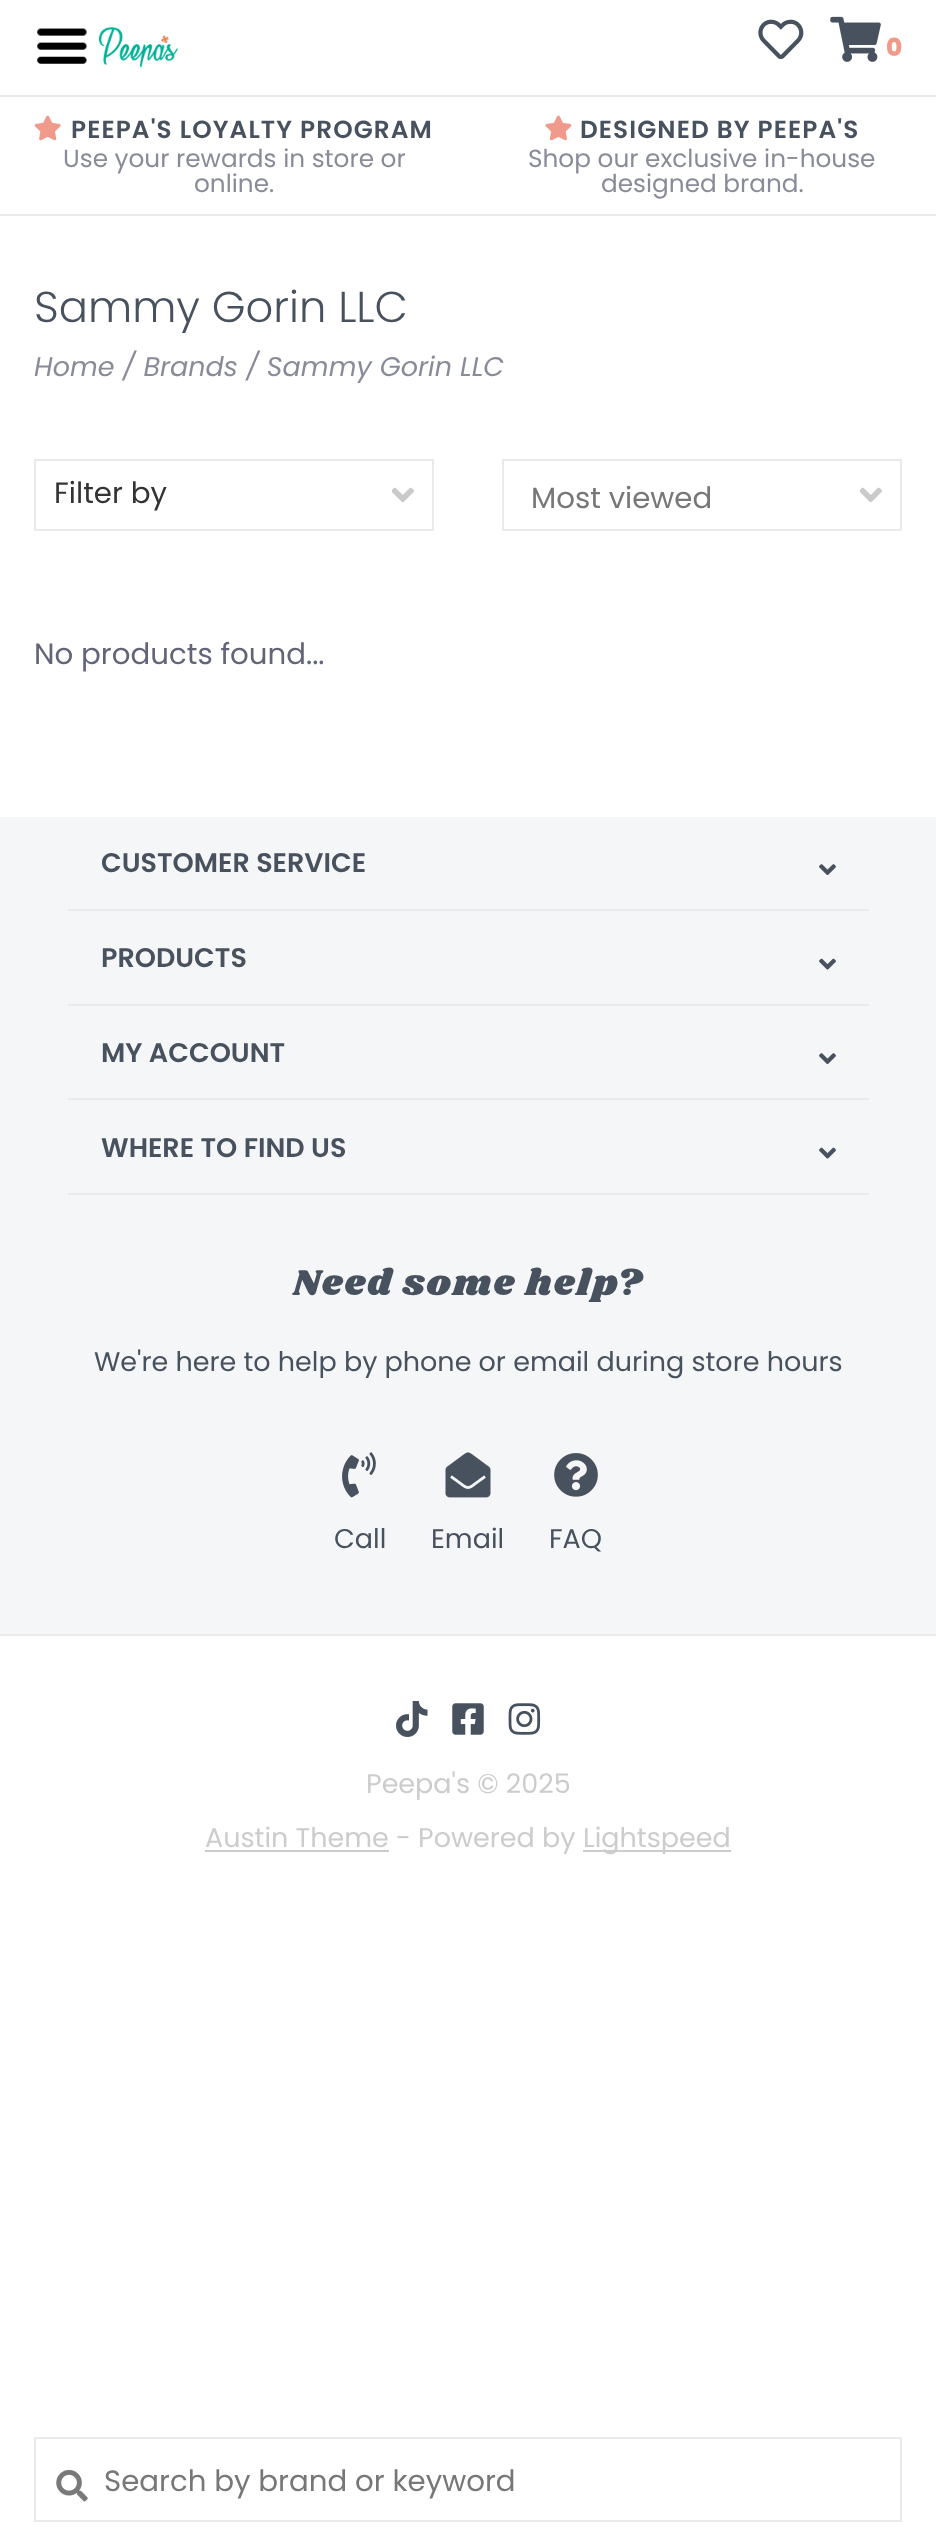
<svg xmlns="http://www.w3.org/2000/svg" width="936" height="2545">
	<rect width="100%" height="100%" fill="#FFFFFF" />
	<image x="37" y="28" width="50" height="36" href="assets/img1.png" />
	<image x="99" y="27" width="79" height="41" href="assets/img2.png" />
	<image x="758" y="19" width="46" height="41" href="assets/img3.png" />
	<image x="830" y="16" width="51" height="46" href="assets/img4.png" />
	<text x="886" y="56" font-family="Poppins" font-size="24.75" font-weight="800" fill="#F09A8B">0</text>
	<rect x="0" y="95" width="936" height="2" fill="#EAEAEA" />
	<rect x="0" y="214" width="936" height="2" fill="#EAEAEA" />
	<image x="34" y="115" width="27" height="26" href="assets/img5.png" />
	<text x="71" y="138" font-family="Poppins" font-size="24.75" font-weight="600" letter-spacing="1.1" fill="#48515E">PEEPA'S LOYALTY PROGRAM</text>
	<g font-family="Poppins" font-size="24.75" fill="#898B99">
		<text x="63" y="167">Use your rewards in store or</text>
		<text x="194" y="192">online.</text>
	</g>
	<image x="545" y="115" width="27" height="26" href="assets/img6.png" />
	<text x="580" y="138" font-family="Poppins" font-size="24.75" font-weight="600" letter-spacing="1.1" fill="#48515E">DESIGNED BY PEEPA'S</text>
	<g font-family="Poppins" font-size="24.75" fill="#898B99">
		<text x="528" y="167">Shop our exclusive in-house</text>
		<text x="601" y="192">designed brand.</text>
	</g>
	<text x="34" y="322" font-family="Poppins" font-size="43.25" font-weight="300" fill="#48515E">Sammy Gorin LLC</text>
	<text x="34" y="376" font-family="Poppins" font-size="27" font-style="italic" fill="#898B99">Home / Brands / Sammy Gorin LLC</text>
	<image x="392" y="487" width="22" height="16" href="assets/img7.png" />
	<rect x="35" y="460" width="398" height="70" fill="none" stroke="#EAEAEA" stroke-width="2" />
	<text x="54" y="503" font-family="Poppins" font-size="29.25" fill="#333333">Filter by</text>
	<image x="860" y="487" width="22" height="16" href="assets/img7.png" />
	<rect x="503" y="460" width="398" height="70" fill="none" stroke="#EAEAEA" stroke-width="2" />
	<text x="531" y="508" font-family="Poppins" font-size="29.25" fill="#777777">Most viewed</text>
	<text x="34" y="664" font-family="Poppins" font-size="29.25" fill="#626577">No products found...</text>
	<rect x="0" y="817" width="936" height="817" fill="#F5F6F8" />
	<rect x="68" y="909" width="801" height="2" fill="#EAEAEA" />
	<text x="101" y="872" font-family="Poppins" font-size="27" font-weight="600" fill="#48515E">CUSTOMER SERVICE</text>
	<image x="819" y="864" width="17" height="11" href="assets/img8.png" />
	<rect x="68" y="1004" width="801" height="2" fill="#EAEAEA" />
	<text x="101" y="967" font-family="Poppins" font-size="27" font-weight="600" fill="#48515E">PRODUCTS</text>
	<image x="819" y="958" width="17" height="12" href="assets/img9.png" />
	<rect x="68" y="1098" width="801" height="2" fill="#EAEAEA" />
	<text x="101" y="1062" font-family="Poppins" font-size="27" font-weight="600" fill="#48515E">MY ACCOUNT</text>
	<image x="819" y="1053" width="17" height="11" href="assets/img8.png" />
	<rect x="68" y="1193" width="801" height="2" fill="#EAEAEA" />
	<text x="101" y="1157" font-family="Poppins" font-size="27" font-weight="600" fill="#48515E">WHERE TO FIND US</text>
	<image x="819" y="1147" width="17" height="12" href="assets/img9.png" />
	<text x="293" y="1295" font-family="Shrikhand" font-size="37.1" letter-spacing="1.9" fill="#48515E">Need some help?</text>
	<text x="94" y="1371" font-family="Poppins" font-size="27" fill="#48515E">We're here to help by phone or email during store hours</text>
	<image x="342" y="1452" width="34" height="46" href="assets/img10.png" />
	<text x="334" y="1548" font-family="Poppins" font-size="27" fill="#48515E">Call</text>
	<image x="445" y="1452" width="46" height="46" href="assets/img11.png" />
	<text x="431" y="1548" font-family="Poppins" font-size="27" fill="#48515E">Email</text>
	<image x="554" y="1453" width="44" height="44" href="assets/img12.png" />
	<text x="549" y="1548" font-family="Poppins" font-size="27" fill="#48515E">FAQ</text>
	<rect x="0" y="1634" width="936" height="2" fill="#EAEAEA" />
	<image x="396" y="1701" width="32" height="36" href="assets/img13.png" />
	<image x="452" y="1703" width="32" height="32" href="assets/img14.png" />
	<image x="508" y="1703" width="33" height="32" href="assets/img15.png" />
	<text x="366" y="1793" font-family="Poppins" font-size="27" fill="#CCCCCC">Peepa's © 2025</text>
	<rect x="205" y="1850" width="184" height="2" fill="#CCCCCC" />
	<text x="205" y="1847" font-family="Poppins" font-size="27" fill="#CCCCCC">Austin Theme - Powered by</text>
	<rect x="583" y="1850" width="148" height="2" fill="#CCCCCC" />
	<text x="583" y="1847" font-family="Poppins" font-size="27" fill="#CCCCCC">Lightspeed</text>
	<rect x="35" y="2438" width="866" height="83" fill="none" stroke="#EAEAEA" stroke-width="2" />
	<image x="56" y="2470" width="32" height="32" href="assets/img16.png" />
	<text x="104" y="2491" font-family="Poppins" font-size="29.25" fill="#777777">Search by brand or keyword</text>
</svg>
